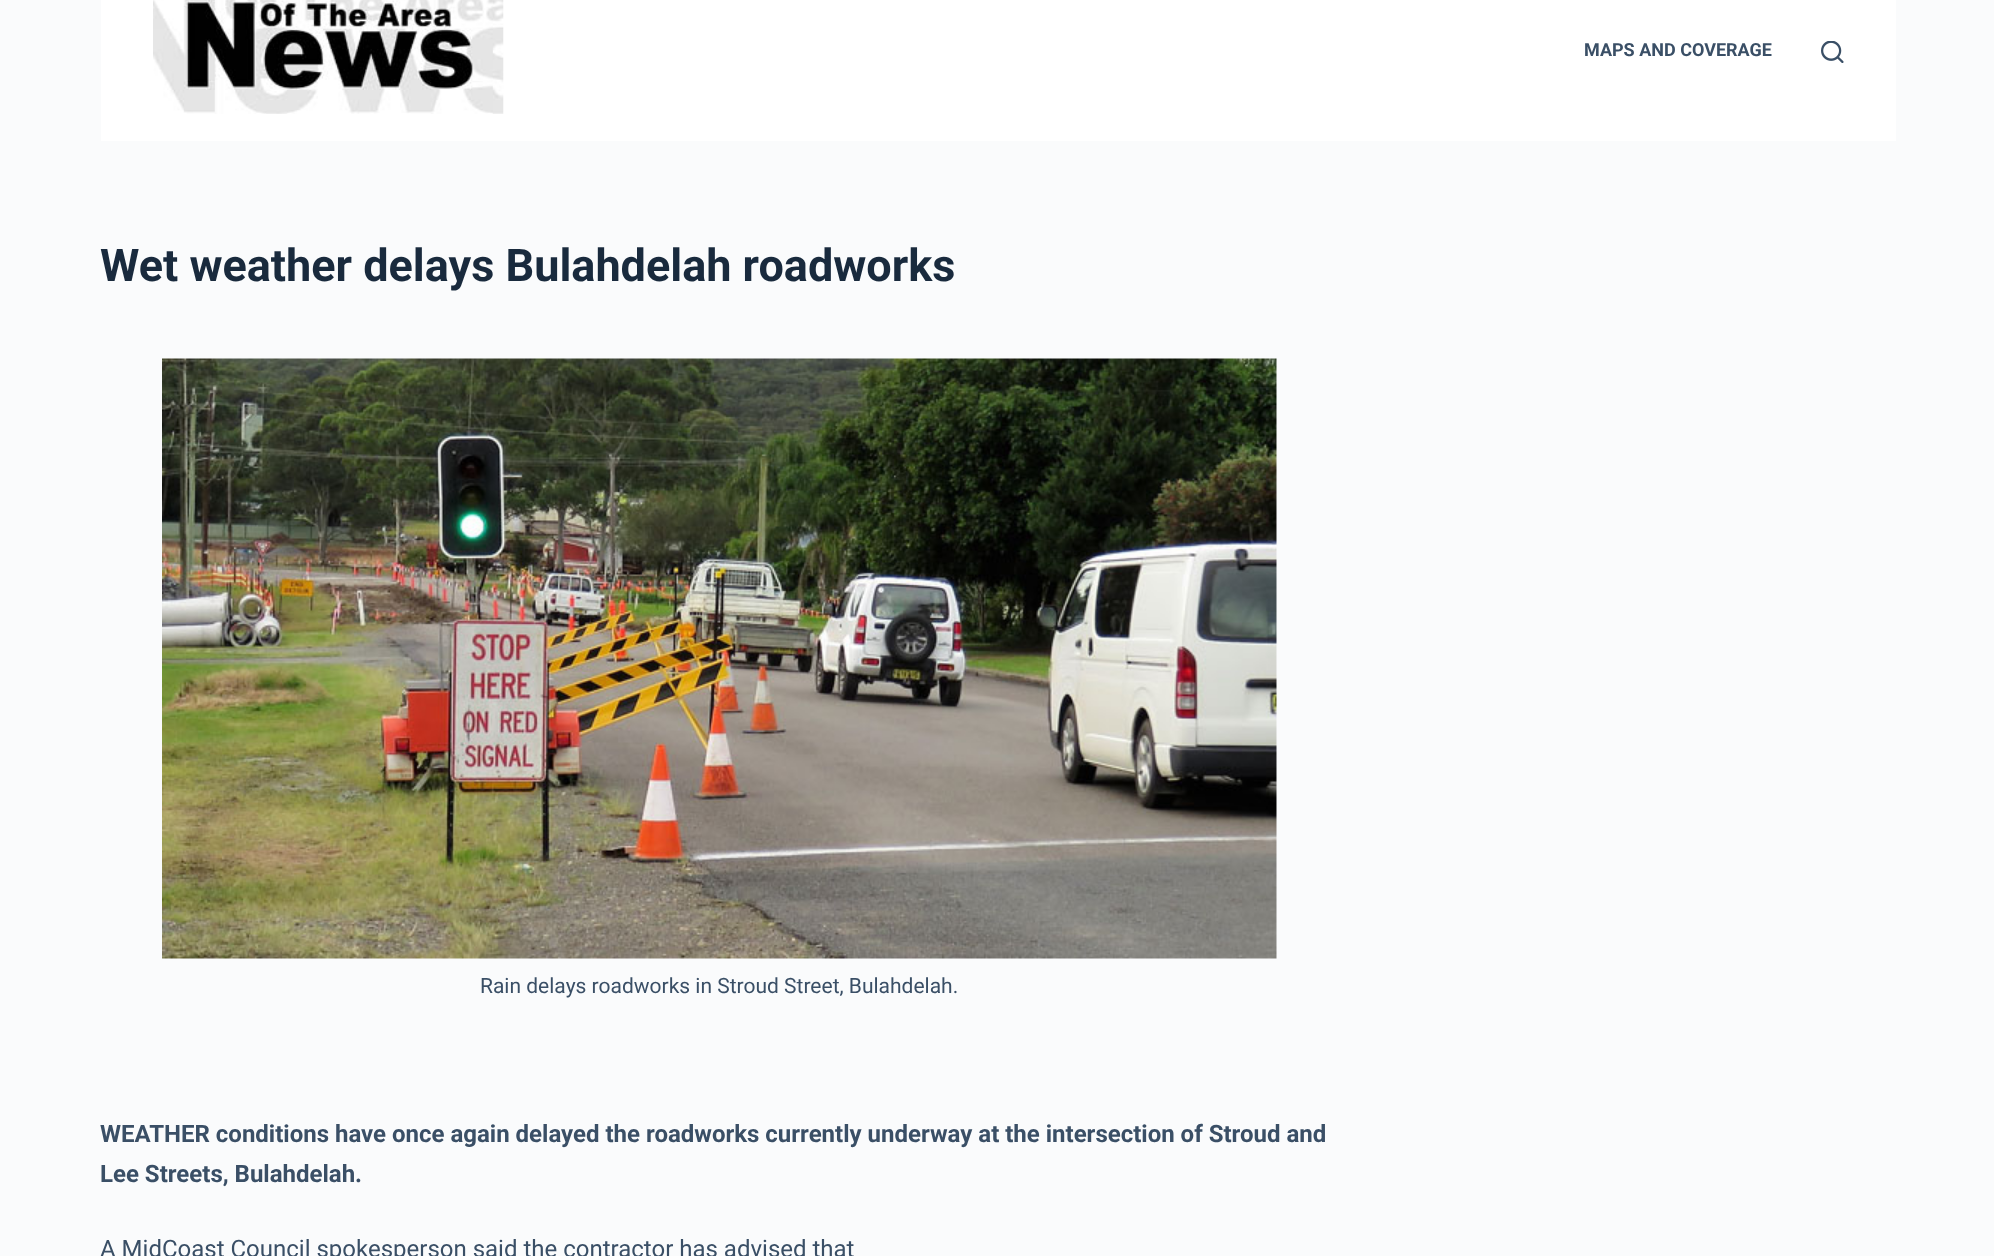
<svg xmlns="http://www.w3.org/2000/svg" width="1994" height="1256">
	<rect width="100%" height="100%" fill="#FAFBFC" />
	<rect x="101" y="0" width="1795" height="141" fill="#FFFFFF" />
	<image x="153" y="0" width="351" height="114" href="assets/img1.png" />
	<text x="1584" y="56" font-family="Roboto" font-size="18" font-weight="700" fill="#3A4F66">MAPS AND COVERAGE</text>
	<image x="1821" y="41" width="23" height="22" href="assets/img2.png" />
	<text x="100" y="281" font-family="Roboto" font-size="45" font-weight="700" fill="#192A3D">Wet weather delays Bulahdelah roadworks</text>
	<image x="162" y="358" width="1115" height="601" href="assets/img3.png" />
	<text x="480" y="993" font-family="Roboto" font-size="21" fill="#3A4F66">Rain delays roadworks in Stroud Street, Bulahdelah.</text>
	<g font-family="Roboto" font-size="24" font-weight="700" fill="#3A4F66">
		<text x="100" y="1142">WEATHER conditions have once again delayed the roadworks currently underway at the intersection of Stroud and</text>
		<text x="100" y="1182">Lee Streets, Bulahdelah.</text>
	</g>
	<text x="100" y="1257" font-family="Roboto" font-size="24" fill="#3A4F66">A MidCoast Council spokesperson said the contractor has advised that</text>
</svg>
